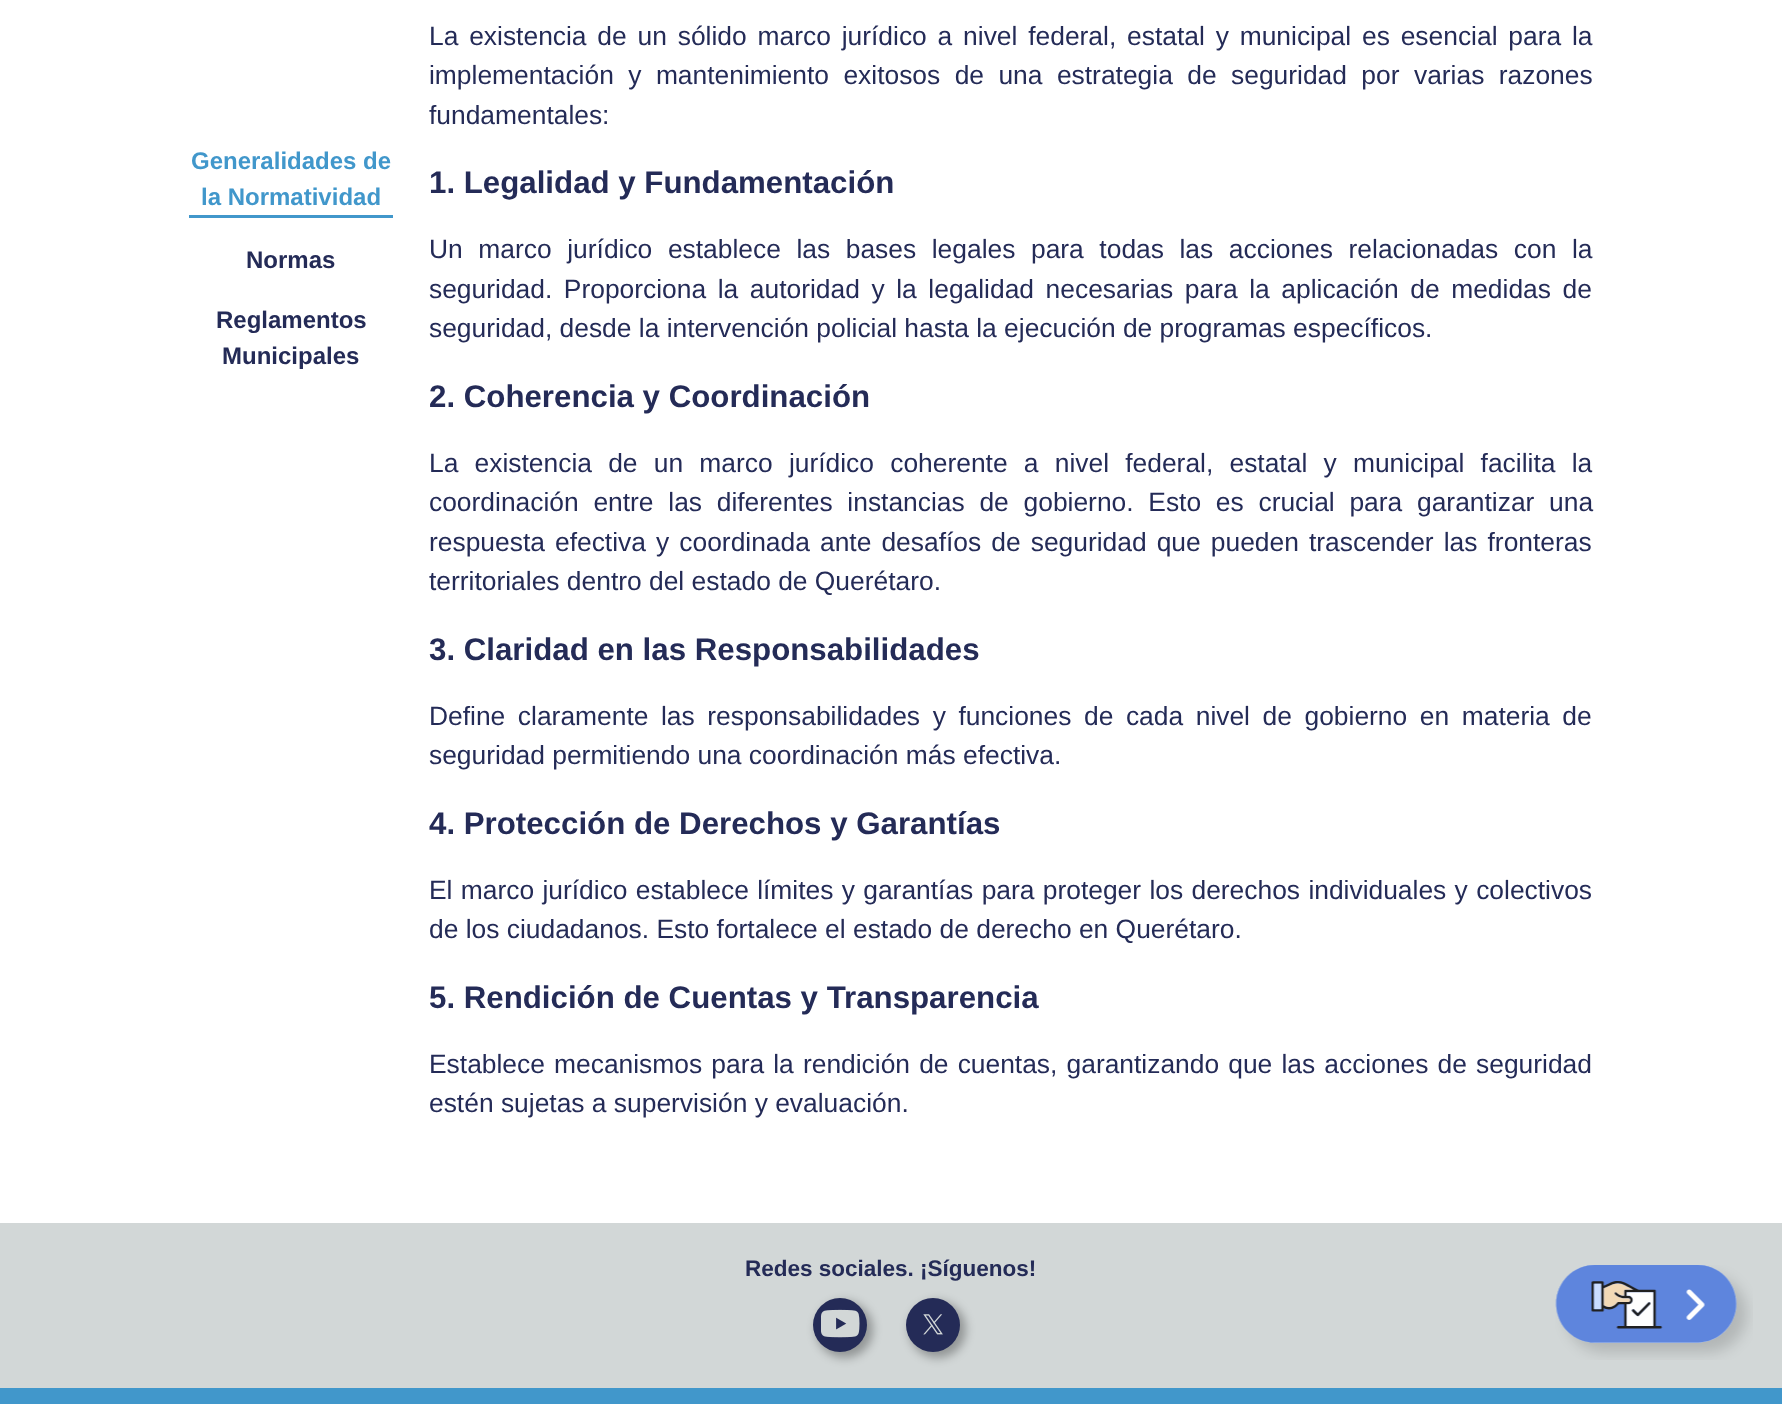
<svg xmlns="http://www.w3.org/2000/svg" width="1782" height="1404">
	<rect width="100%" height="100%" fill="#FFFFFF" />
	<rect x="189" y="215" width="204" height="3" fill="#4197CB" />
	<g font-family="Liberation Sans" font-size="24" font-weight="700" fill="#4197CB">
		<text x="191" y="169">Generalidades de</text>
		<text x="201" y="205">la Normatividad</text>
	</g>
	<g font-family="Liberation Sans" font-size="24" font-weight="700" fill="#242B57">
		<text x="246" y="268">Normas</text>
		<text x="216" y="328">Reglamentos</text>
		<text x="222" y="364">Municipales</text>
	</g>
	<g font-family="Liberation Sans" font-size="26.4" fill="#242B57">
		<text x="429" y="45" word-spacing="3.5">La existencia de un sólido marco jurídico a nivel federal, estatal y municipal es esencial para la</text>
		<text x="429" y="84" word-spacing="7.1">implementación y mantenimiento exitosos de una estrategia de seguridad por varias razones</text>
		<text x="429" y="124">fundamentales:</text>
	</g>
	<text x="429" y="193" font-family="Liberation Sans" font-size="31.25" font-weight="700" fill="#242B57">1. Legalidad y Fundamentación</text>
	<g font-family="Liberation Sans" font-size="26.4" fill="#242B57">
		<text x="429" y="258" word-spacing="8.25">Un marco jurídico establece las bases legales para todas las acciones relacionadas con la</text>
		<text x="429" y="298" word-spacing="4.25">seguridad. Proporciona la autoridad y la legalidad necesarias para la aplicación de medidas de</text>
		<text x="429" y="337">seguridad, desde la intervención policial hasta la ejecución de programas específicos.</text>
	</g>
	<text x="429" y="407" font-family="Liberation Sans" font-size="31.25" font-weight="700" fill="#242B57">2. Coherencia y Coordinación</text>
	<g font-family="Liberation Sans" font-size="26.4" fill="#242B57">
		<text x="429" y="472" word-spacing="8.9">La existencia de un marco jurídico coherente a nivel federal, estatal y municipal facilita la</text>
		<text x="429" y="511" word-spacing="7.4">coordinación entre las diferentes instancias de gobierno. Esto es crucial para garantizar una</text>
		<text x="429" y="551" word-spacing="2.75">respuesta efectiva y coordinada ante desafíos de seguridad que pueden trascender las fronteras</text>
		<text x="429" y="590">territoriales dentro del estado de Querétaro.</text>
	</g>
	<text x="429" y="660" font-family="Liberation Sans" font-size="31.25" font-weight="700" fill="#242B57">3. Claridad en las Responsabilidades</text>
	<g font-family="Liberation Sans" font-size="26.4" fill="#242B57">
		<text x="429" y="725" word-spacing="5.25">Define claramente las responsabilidades y funciones de cada nivel de gobierno en materia de</text>
		<text x="429" y="764">seguridad permitiendo una coordinación más efectiva.</text>
	</g>
	<text x="429" y="834" font-family="Liberation Sans" font-size="31.25" font-weight="700" fill="#242B57">4. Protección de Derechos y Garantías</text>
	<g font-family="Liberation Sans" font-size="26.4" fill="#242B57">
		<text x="429" y="899" word-spacing="1">El marco jurídico establece límites y garantías para proteger los derechos individuales y colectivos</text>
		<text x="429" y="938">de los ciudadanos. Esto fortalece el estado de derecho en Querétaro.</text>
	</g>
	<text x="429" y="1008" font-family="Liberation Sans" font-size="31.25" font-weight="700" fill="#242B57">5. Rendición de Cuentas y Transparencia</text>
	<g font-family="Liberation Sans" font-size="26.4" fill="#242B57">
		<text x="429" y="1073" word-spacing="1.8">Establece mecanismos para la rendición de cuentas, garantizando que las acciones de seguridad</text>
		<text x="429" y="1112">estén sujetas a supervisión y evaluación.</text>
	</g>
	<rect x="0" y="1223" width="1782" height="165" fill="#D2D7D7" />
	<text x="745" y="1276" font-family="Liberation Sans" font-size="22.5" font-weight="700" fill="#242B57">Redes sociales. ¡Síguenos!</text>
	<rect x="816" y="1301" width="57" height="57" rx="28.5" fill="#000000" fill-opacity="0.3" filter="blur(5px)" />
	<circle cx="840" cy="1325" r="27" fill="#242B57" />
	<image x="821" y="1309" width="39" height="29" href="assets/img1.png" />
	<rect x="909" y="1301" width="57" height="57" rx="28.5" fill="#000000" fill-opacity="0.3" filter="blur(5px)" />
	<circle cx="933" cy="1325" r="27" fill="#242B57" />
	<image x="923" y="1314" width="20" height="21" href="assets/img2.png" />
	<image x="1555" y="1265" width="198" height="95" href="assets/img3.png" />
	<rect x="0" y="1388" width="1782" height="16" fill="#4197CB" />
</svg>
